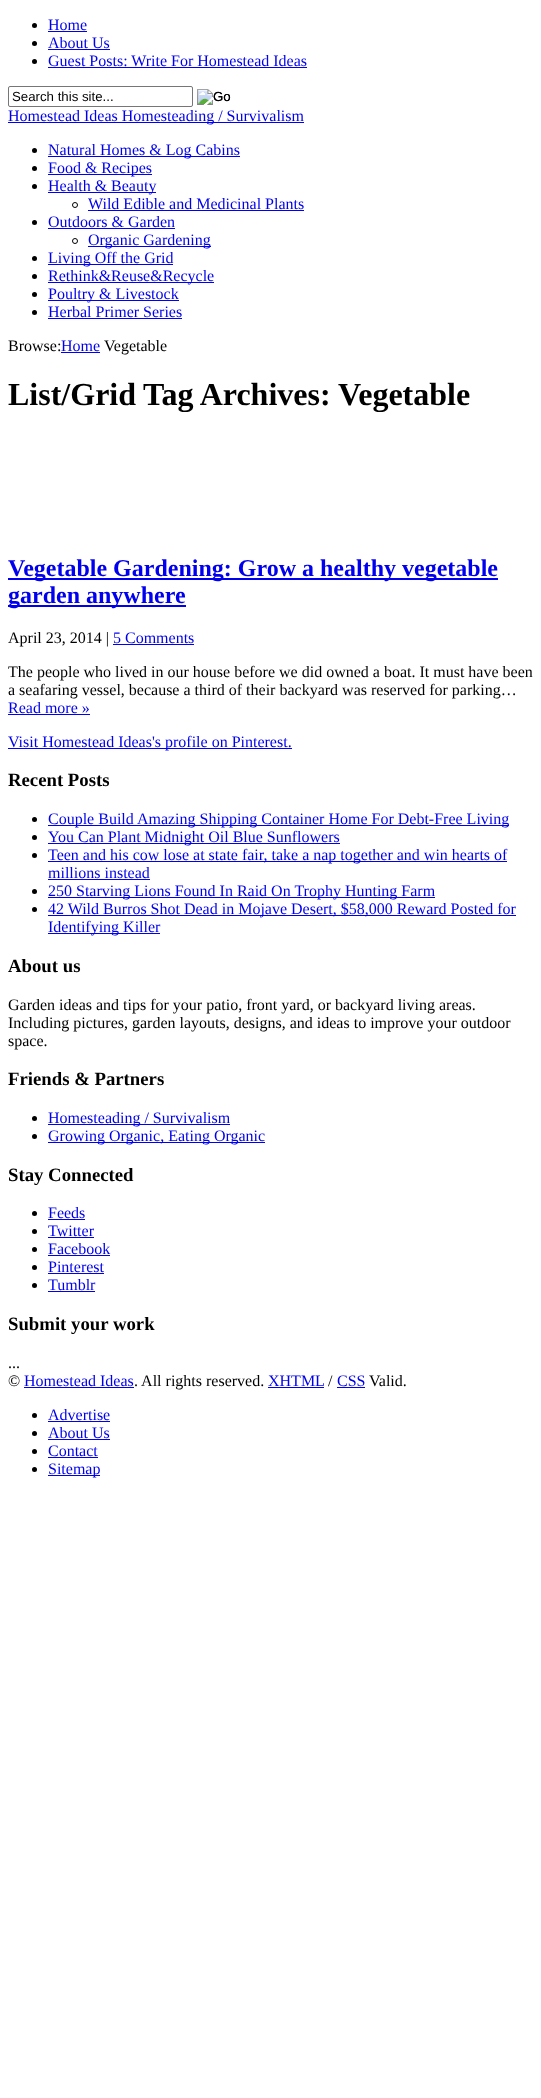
<svg xmlns="http://www.w3.org/2000/svg" width="541" height="2098">
	<rect width="100%" height="100%" fill="#FFFFFF" />
	<circle cx="34.5" cy="25.5" r="2.5" fill="#000000" />
	<text x="48" y="30" font-family="Liberation Serif" font-size="16" fill="#0000EE">Home</text>
	<rect x="48" y="31" width="39" height="1" fill="#0000EE" />
	<circle cx="34.5" cy="43.5" r="2.5" fill="#000000" />
	<text x="48" y="48" font-family="Liberation Serif" font-size="16" fill="#0000EE">About Us</text>
	<rect x="48" y="49" width="62" height="1" fill="#0000EE" />
	<circle cx="34.5" cy="61.5" r="2.5" fill="#000000" />
	<text x="48" y="66" font-family="Liberation Serif" font-size="16" fill="#0000EE">Guest Posts: Write For Homestead Ideas</text>
	<rect x="48" y="67" width="259" height="1" fill="#0000EE" />
	<rect x="8.5" y="86.5" width="184" height="20" rx="1.5" fill="none" stroke="#767676" />
	<text x="12" y="101" font-family="Liberation Sans" font-size="13.25" fill="#000000">Search this site...</text>
	<image x="197" y="89" width="34" height="16" href="assets/img1.png" />
	<text x="213" y="101" font-family="Liberation Sans" font-size="13.25" fill="#000000">Go</text>
	<rect x="8" y="122" width="296" height="1" fill="#0000EE" />
	<text x="8" y="121" font-family="Liberation Serif" font-size="16" fill="#0000EE">Homestead Ideas Homesteading / Survivalism</text>
	<circle cx="34.5" cy="150.5" r="2.5" fill="#000000" />
	<rect x="48" y="156" width="192" height="1" fill="#0000EE" />
	<text x="48" y="155" font-family="Liberation Serif" font-size="16" fill="#0000EE">Natural Homes &amp; Log Cabins</text>
	<circle cx="34.5" cy="168.5" r="2.5" fill="#000000" />
	<rect x="48" y="174" width="104" height="1" fill="#0000EE" />
	<text x="48" y="173" font-family="Liberation Serif" font-size="16" fill="#0000EE">Food &amp; Recipes</text>
	<circle cx="34.5" cy="186.5" r="2.5" fill="#000000" />
	<rect x="48" y="192" width="108" height="1" fill="#0000EE" />
	<text x="48" y="191" font-family="Liberation Serif" font-size="16" fill="#0000EE">Health &amp; Beauty</text>
	<circle cx="75" cy="205" r="2.5" fill="none" stroke="#000000" />
	<text x="88" y="209" font-family="Liberation Serif" font-size="16" fill="#0000EE">Wild Edible and Medicinal Plants</text>
	<rect x="88" y="210" width="216" height="1" fill="#0000EE" />
	<circle cx="34.5" cy="222.5" r="2.5" fill="#000000" />
	<text x="48" y="227" font-family="Liberation Serif" font-size="16" fill="#0000EE">Outdoors &amp; Garden</text>
	<rect x="48" y="228" width="127" height="1" fill="#0000EE" />
	<circle cx="75" cy="241" r="2.5" fill="none" stroke="#000000" />
	<rect x="88" y="246" width="123" height="1" fill="#0000EE" />
	<text x="88" y="245" font-family="Liberation Serif" font-size="16" fill="#0000EE">Organic Gardening</text>
	<circle cx="34.5" cy="258.5" r="2.5" fill="#000000" />
	<rect x="48" y="264" width="125" height="1" fill="#0000EE" />
	<text x="48" y="263" font-family="Liberation Serif" font-size="16" fill="#0000EE">Living Off the Grid</text>
	<circle cx="34.5" cy="276.5" r="2.5" fill="#000000" />
	<rect x="48" y="282" width="166" height="1" fill="#0000EE" />
	<text x="48" y="281" font-family="Liberation Serif" font-size="16" fill="#0000EE">Rethink&amp;Reuse&amp;Recycle</text>
	<circle cx="34.5" cy="294.5" r="2.5" fill="#000000" />
	<rect x="48" y="300" width="131" height="1" fill="#0000EE" />
	<text x="48" y="299" font-family="Liberation Serif" font-size="16" fill="#0000EE">Poultry &amp; Livestock</text>
	<circle cx="34.5" cy="312.5" r="2.5" fill="#000000" />
	<text x="48" y="317" font-family="Liberation Serif" font-size="16" fill="#0000EE">Herbal Primer Series</text>
	<rect x="48" y="318" width="134" height="1" fill="#0000EE" />
	<text x="8" y="351" font-family="Liberation Serif" font-size="16" fill="#000000">Browse:</text>
	<text x="61" y="351" font-family="Liberation Serif" font-size="16" fill="#0000EE">Home</text>
	<rect x="61" y="352" width="39" height="1" fill="#0000EE" />
	<text x="104" y="351" font-family="Liberation Serif" font-size="16" fill="#000000">Vegetable</text>
	<g font-family="Liberation Serif" font-size="32" font-weight="700" fill="#000000">
		<text x="8" y="405">List/Grid</text>
		<text x="143" y="405">Tag Archives:</text>
		<text x="338" y="405">Vegetable</text>
	</g>
	<rect x="8" y="578" width="490" height="2" fill="#0000EE" />
	<text x="8" y="576" font-family="Liberation Serif" font-size="24" font-weight="700" fill="#0000EE">Vegetable Gardening: Grow a healthy vegetable</text>
	<rect x="8" y="605" width="178" height="2" fill="#0000EE" />
	<text x="8" y="603" font-family="Liberation Serif" font-size="24" font-weight="700" fill="#0000EE">garden anywhere</text>
	<text x="8" y="643" font-family="Liberation Serif" font-size="16" fill="#000000">April 23, 2014 |</text>
	<text x="113" y="643" font-family="Liberation Serif" font-size="16" fill="#0000EE">5 Comments</text>
	<rect x="113" y="644" width="81" height="1" fill="#0000EE" />
	<g font-family="Liberation Serif" font-size="16" fill="#000000">
		<text x="8" y="677">The people who lived in our house before we did owned a boat. It must have been</text>
		<text x="8" y="695">a seafaring vessel, because a third of their backyard was reserved for parking…</text>
	</g>
	<text x="8" y="713" font-family="Liberation Serif" font-size="16" fill="#0000EE">Read more »</text>
	<rect x="8" y="714" width="82" height="1" fill="#0000EE" />
	<rect x="8" y="748" width="284" height="1" fill="#0000EE" />
	<text x="8" y="747" font-family="Liberation Serif" font-size="16" fill="#0000EE">Visit Homestead Ideas's profile on Pinterest.</text>
	<text x="8" y="786" font-family="Liberation Serif" font-size="18.75" font-weight="700" fill="#000000">Recent Posts</text>
	<circle cx="34.5" cy="819.5" r="2.5" fill="#000000" />
	<rect x="48" y="825" width="461" height="1" fill="#0000EE" />
	<text x="48" y="824" font-family="Liberation Serif" font-size="16" fill="#0000EE">Couple Build Amazing Shipping Container Home For Debt-Free Living</text>
	<circle cx="34.5" cy="837.5" r="2.5" fill="#000000" />
	<rect x="48" y="843" width="292" height="1" fill="#0000EE" />
	<text x="48" y="842" font-family="Liberation Serif" font-size="16" fill="#0000EE">You Can Plant Midnight Oil Blue Sunflowers</text>
	<circle cx="34.5" cy="855.5" r="2.5" fill="#000000" />
	<rect x="48" y="861" width="459" height="1" fill="#0000EE" />
	<g font-family="Liberation Serif" font-size="16" fill="#0000EE">
		<text x="48" y="860">Teen and his cow lose at state fair, take a nap together and win hearts of</text>
		<text x="48" y="878">millions instead</text>
	</g>
	<rect x="48" y="879" width="102" height="1" fill="#0000EE" />
	<circle cx="34.5" cy="891.5" r="2.5" fill="#000000" />
	<rect x="48" y="897" width="387" height="1" fill="#0000EE" />
	<text x="48" y="896" font-family="Liberation Serif" font-size="16" fill="#0000EE">250 Starving Lions Found In Raid On Trophy Hunting Farm</text>
	<circle cx="34.5" cy="909.5" r="2.5" fill="#000000" />
	<rect x="48" y="915" width="468" height="1" fill="#0000EE" />
	<text x="48" y="914" font-family="Liberation Serif" font-size="16" fill="#0000EE">42 Wild Burros Shot Dead in Mojave Desert, $58,000 Reward Posted for</text>
	<rect x="48" y="933" width="112" height="1" fill="#0000EE" />
	<text x="48" y="932" font-family="Liberation Serif" font-size="16" fill="#0000EE">Identifying Killer</text>
	<text x="8" y="972" font-family="Liberation Serif" font-size="18.75" font-weight="700" fill="#000000">About us</text>
	<g font-family="Liberation Serif" font-size="16" fill="#000000">
		<text x="8" y="1010">Garden ideas and tips for your patio, front yard, or backyard living areas.</text>
		<text x="8" y="1028">Including pictures, garden layouts, designs, and ideas to improve your outdoor</text>
		<text x="8" y="1046">space.</text>
	</g>
	<text x="8" y="1085" font-family="Liberation Serif" font-size="18.75" font-weight="700" fill="#000000">Friends &amp; Partners</text>
	<circle cx="34.5" cy="1118.5" r="2.5" fill="#000000" />
	<rect x="48" y="1124" width="182" height="1" fill="#0000EE" />
	<text x="48" y="1123" font-family="Liberation Serif" font-size="16" fill="#0000EE">Homesteading / Survivalism</text>
	<circle cx="34.5" cy="1136.5" r="2.5" fill="#000000" />
	<rect x="48" y="1142" width="217" height="1" fill="#0000EE" />
	<text x="48" y="1141" font-family="Liberation Serif" font-size="16" fill="#0000EE">Growing Organic, Eating Organic</text>
	<text x="8" y="1181" font-family="Liberation Serif" font-size="18.75" font-weight="700" fill="#000000">Stay Connected</text>
	<circle cx="34.5" cy="1213.5" r="2.5" fill="#000000" />
	<text x="48" y="1218" font-family="Liberation Serif" font-size="16" fill="#0000EE">Feeds</text>
	<rect x="48" y="1219" width="37" height="1" fill="#0000EE" />
	<circle cx="34.5" cy="1231.5" r="2.5" fill="#000000" />
	<text x="48" y="1236" font-family="Liberation Serif" font-size="16" fill="#0000EE">Twitter</text>
	<rect x="48" y="1237" width="46" height="1" fill="#0000EE" />
	<circle cx="34.5" cy="1249.5" r="2.5" fill="#000000" />
	<text x="48" y="1254" font-family="Liberation Serif" font-size="16" fill="#0000EE">Facebook</text>
	<rect x="48" y="1255" width="62" height="1" fill="#0000EE" />
	<circle cx="34.5" cy="1267.5" r="2.5" fill="#000000" />
	<text x="48" y="1272" font-family="Liberation Serif" font-size="16" fill="#0000EE">Pinterest</text>
	<rect x="48" y="1273" width="56" height="1" fill="#0000EE" />
	<circle cx="34.5" cy="1285.5" r="2.5" fill="#000000" />
	<text x="48" y="1290" font-family="Liberation Serif" font-size="16" fill="#0000EE">Tumblr</text>
	<rect x="48" y="1291" width="47" height="1" fill="#0000EE" />
	<text x="8" y="1330" font-family="Liberation Serif" font-size="18.75" font-weight="700" fill="#000000">Submit your work</text>
	<g font-family="Liberation Serif" font-size="16" fill="#000000">
		<text x="8" y="1368">...</text>
		<text x="8" y="1386">©</text>
	</g>
	<text x="24" y="1386" font-family="Liberation Serif" font-size="16" fill="#0000EE">Homestead Ideas</text>
	<rect x="24" y="1387" width="110" height="1" fill="#0000EE" />
	<text x="134" y="1386" font-family="Liberation Serif" font-size="16" fill="#000000">. All rights reserved.</text>
	<text x="268" y="1386" font-family="Liberation Serif" font-size="16" fill="#0000EE">XHTML</text>
	<rect x="268" y="1387" width="56" height="1" fill="#0000EE" />
	<text x="328" y="1386" font-family="Liberation Serif" font-size="16" fill="#000000">/</text>
	<text x="337" y="1386" font-family="Liberation Serif" font-size="16" fill="#0000EE">CSS</text>
	<rect x="337" y="1387" width="28" height="1" fill="#0000EE" />
	<text x="369" y="1386" font-family="Liberation Serif" font-size="16" fill="#000000">Valid.</text>
	<circle cx="34.5" cy="1415.5" r="2.5" fill="#000000" />
	<text x="48" y="1420" font-family="Liberation Serif" font-size="16" fill="#0000EE">Advertise</text>
	<rect x="48" y="1421" width="62" height="1" fill="#0000EE" />
	<circle cx="34.5" cy="1433.5" r="2.5" fill="#000000" />
	<text x="48" y="1438" font-family="Liberation Serif" font-size="16" fill="#0000EE">About Us</text>
	<rect x="48" y="1439" width="62" height="1" fill="#0000EE" />
	<circle cx="34.5" cy="1451.5" r="2.5" fill="#000000" />
	<text x="48" y="1456" font-family="Liberation Serif" font-size="16" fill="#0000EE">Contact</text>
	<rect x="48" y="1457" width="50" height="1" fill="#0000EE" />
	<circle cx="34.5" cy="1469.5" r="2.5" fill="#000000" />
	<rect x="48" y="1475" width="52" height="1" fill="#0000EE" />
	<text x="48" y="1474" font-family="Liberation Serif" font-size="16" fill="#0000EE">Sitemap</text>
</svg>
